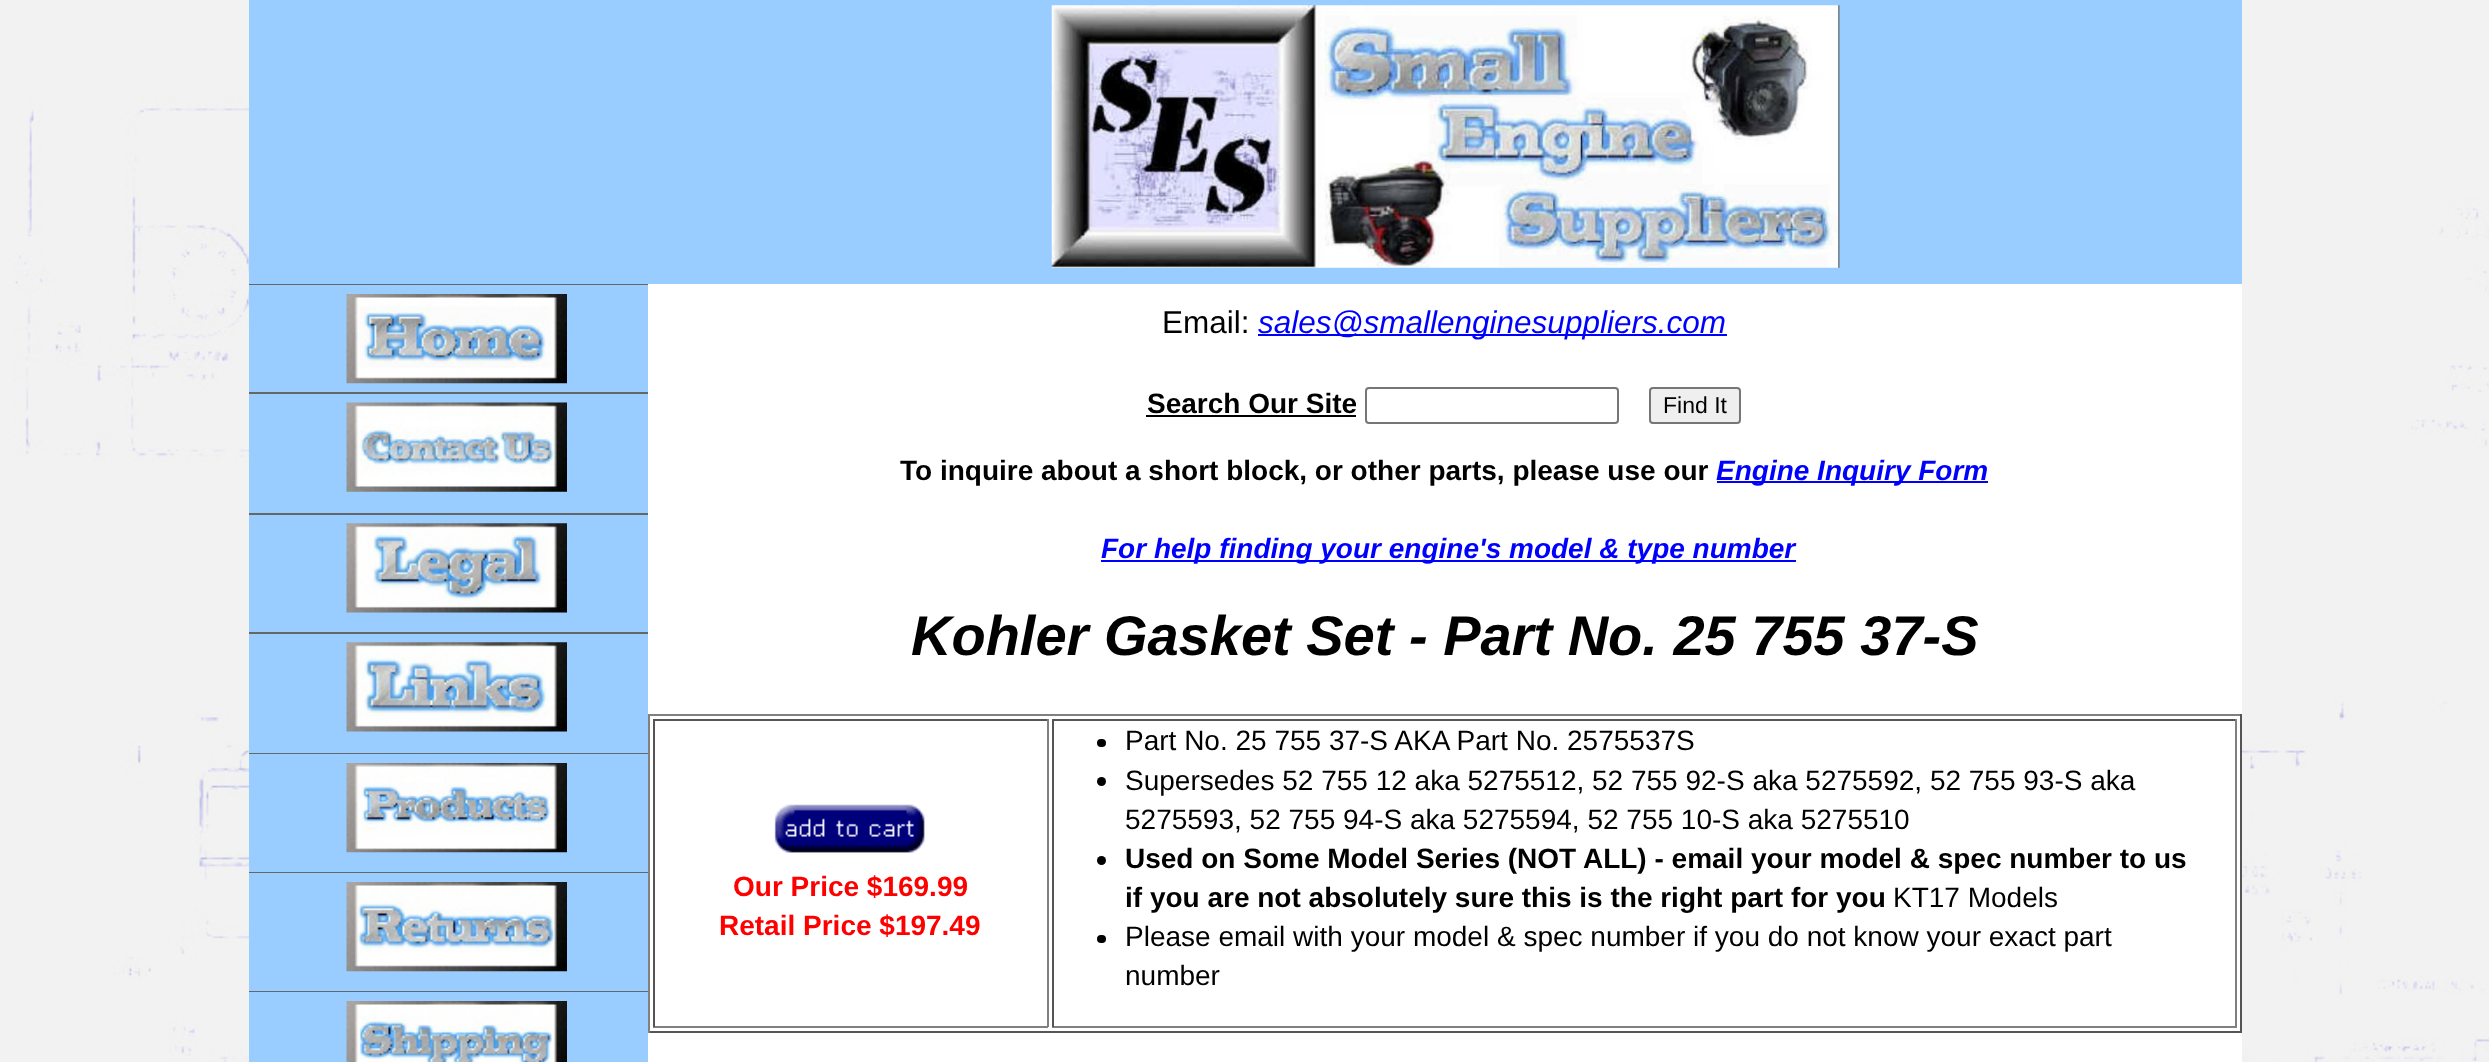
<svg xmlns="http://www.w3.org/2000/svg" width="2489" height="1062">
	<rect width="100%" height="100%" fill="#FFFFFF" />
	<image x="0" y="0" width="2489" height="1062" href="assets/img1.png" />
	<rect x="648" y="284" width="1594" height="778" fill="#FFFFFF" />
	<rect x="249" y="0" width="1993" height="284" fill="#99CCFF" />
	<image x="1051" y="5" width="789" height="263" href="assets/img2.png" />
	<rect x="249" y="394" width="399" height="359" fill="#99CCFF" />
	<rect x="249" y="284" width="399" height="1" fill="#666666" />
	<rect x="249" y="392" width="399" height="2" fill="#666666" />
	<rect x="249" y="285" width="399" height="107" fill="#99CCFF" />
	<image x="346" y="294" width="221" height="90" href="assets/img3.png" />
	<rect x="249" y="513" width="399" height="2" fill="#666666" />
	<image x="346" y="402" width="221" height="90" href="assets/img4.png" />
	<rect x="249" y="632" width="399" height="2" fill="#666666" />
	<image x="346" y="523" width="221" height="90" href="assets/img5.png" />
	<rect x="249" y="753" width="399" height="1" fill="#666666" />
	<image x="346" y="642" width="221" height="90" href="assets/img6.png" />
	<rect x="249" y="872" width="399" height="1" fill="#666666" />
	<rect x="249" y="754" width="399" height="118" fill="#99CCFF" />
	<image x="346" y="763" width="221" height="90" href="assets/img7.png" />
	<rect x="249" y="991" width="399" height="1" fill="#666666" />
	<rect x="249" y="873" width="399" height="118" fill="#99CCFF" />
	<image x="346" y="882" width="221" height="90" href="assets/img8.png" />
	<rect x="249" y="992" width="399" height="70" fill="#99CCFF" />
	<image x="346" y="1001" width="221" height="61" href="assets/img9.png" />
	<text x="1162" y="333" font-family="Liberation Sans" font-size="31.5" fill="#000000">Email:</text>
	<rect x="1258" y="334" width="469" height="2" fill="#0000FF" />
	<text x="1258" y="333" font-family="Liberation Sans" font-size="31.5" font-style="italic" fill="#0000FF">sales@smallenginesuppliers.com</text>
	<text x="1147" y="413" font-family="Liberation Sans" font-size="28" font-weight="700" fill="#000000">Search Our Site</text>
	<rect x="1146" y="415" width="210" height="2" fill="#000000" />
	<rect x="1366" y="388" width="252" height="35" rx="3" fill="none" stroke="#767676" stroke-width="2" />
	<rect x="1650" y="388" width="90" height="35" rx="3" fill="#EFEFEF" stroke="#767676" stroke-width="2" />
	<text x="1663" y="413" font-family="Liberation Sans" font-size="23" fill="#000000">Find It</text>
	<text x="900" y="480" font-family="Liberation Sans" font-size="28" font-weight="700" fill="#000000">To inquire about a short block, or other parts, please use our</text>
	<rect x="1717" y="481" width="271" height="2" fill="#0000FF" />
	<text x="1716" y="480" font-family="Liberation Sans" font-size="28" font-weight="700" font-style="italic" fill="#0000FF">Engine Inquiry Form</text>
	<rect x="1101" y="560" width="695" height="2" fill="#0000FF" />
	<text x="1101" y="558" font-family="Liberation Sans" font-size="28" font-weight="700" font-style="italic" fill="#0000FF">For help finding your engine's model &amp; type number</text>
	<text x="911" y="655" font-family="Liberation Sans" font-size="56" font-weight="700" font-style="italic" fill="#000000">Kohler Gasket Set - Part No. 25 755 37-S</text>
	<rect x="648" y="714" width="1594" height="2" fill="#808080" />
	<rect x="2240" y="714" width="2" height="319" fill="#555555" />
	<rect x="648" y="1031" width="1594" height="2" fill="#555555" />
	<rect x="648" y="714" width="2" height="319" fill="#808080" />
	<rect x="653" y="719" width="395" height="2" fill="#555555" />
	<rect x="1047" y="719" width="2" height="308" fill="#808080" />
	<rect x="653" y="1026" width="395" height="2" fill="#808080" />
	<rect x="653" y="719" width="2" height="308" fill="#555555" />
	<image x="774" y="804" width="151" height="49" href="assets/img10.png" />
	<g font-family="Liberation Sans" font-size="28" font-weight="700" fill="#FF0000">
		<text x="733" y="896">Our Price $169.99</text>
		<text x="719" y="935">Retail Price $197.49</text>
	</g>
	<rect x="1052" y="719" width="1185" height="2" fill="#555555" />
	<rect x="2235" y="719" width="2" height="308" fill="#808080" />
	<rect x="1052" y="1026" width="1185" height="2" fill="#808080" />
	<rect x="1052" y="719" width="2" height="308" fill="#555555" />
	<rect x="1097" y="739" width="9" height="8" rx="4" fill="#000000" />
	<text x="1125" y="750" font-family="Liberation Sans" font-size="28" fill="#000000">Part No. 25 755 37-S AKA Part No. 2575537S</text>
	<circle cx="1101.5" cy="781.5" r="4.5" fill="#000000" />
	<g font-family="Liberation Sans" font-size="28" fill="#000000">
		<text x="1125" y="790">Supersedes 52 755 12 aka 5275512, 52 755 92-S aka 5275592, 52 755 93-S aka</text>
		<text x="1125" y="829">5275593, 52 755 94-S aka 5275594, 52 755 10-S aka 5275510</text>
	</g>
	<circle cx="1101.5" cy="860.5" r="4.5" fill="#000000" />
	<g font-family="Liberation Sans" font-size="28" font-weight="700" fill="#000000">
		<text x="1125" y="868">Used on Some Model Series (NOT ALL) - email your model &amp; spec number to us</text>
		<text x="1125" y="907">if you are not absolutely sure this is the right part for you</text>
	</g>
	<text x="1893" y="907" font-family="Liberation Sans" font-size="28" fill="#000000">KT17 Models</text>
	<rect x="1097" y="935" width="9" height="8" rx="4" fill="#000000" />
	<g font-family="Liberation Sans" font-size="28" fill="#000000">
		<text x="1125" y="946">Please email with your model &amp; spec number if you do not know your exact part</text>
		<text x="1125" y="985">number</text>
	</g>
</svg>
